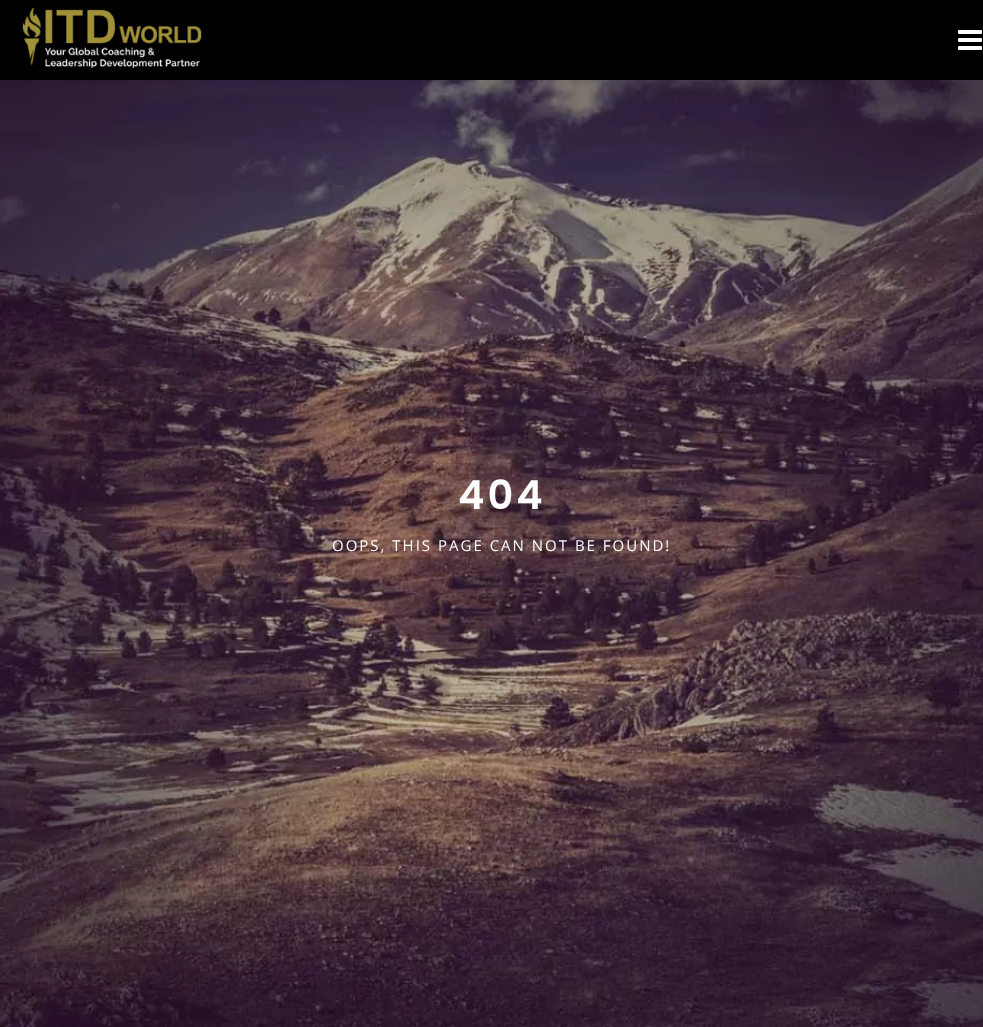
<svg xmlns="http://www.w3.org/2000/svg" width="983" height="1027">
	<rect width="100%" height="100%" fill="#FFFFFF" />
	<rect x="0" y="0" width="983" height="80" fill="#000000" />
	<image x="22" y="7" width="180" height="61" href="assets/img1.png" />
	<image x="958" y="30" width="24" height="20" href="assets/img2.png" />
	<image x="0" y="80" width="983" height="947" href="assets/img3.png" />
	<text x="458" y="509" font-family="Poppins" font-size="40" font-weight="600" letter-spacing="3" fill="#FDFDFD">404</text>
	<text x="332" y="551" font-family="Open Sans" font-size="15" letter-spacing="2" fill="#FDFDFD">OOPS, THIS PAGE CAN NOT BE FOUND!</text>
</svg>
